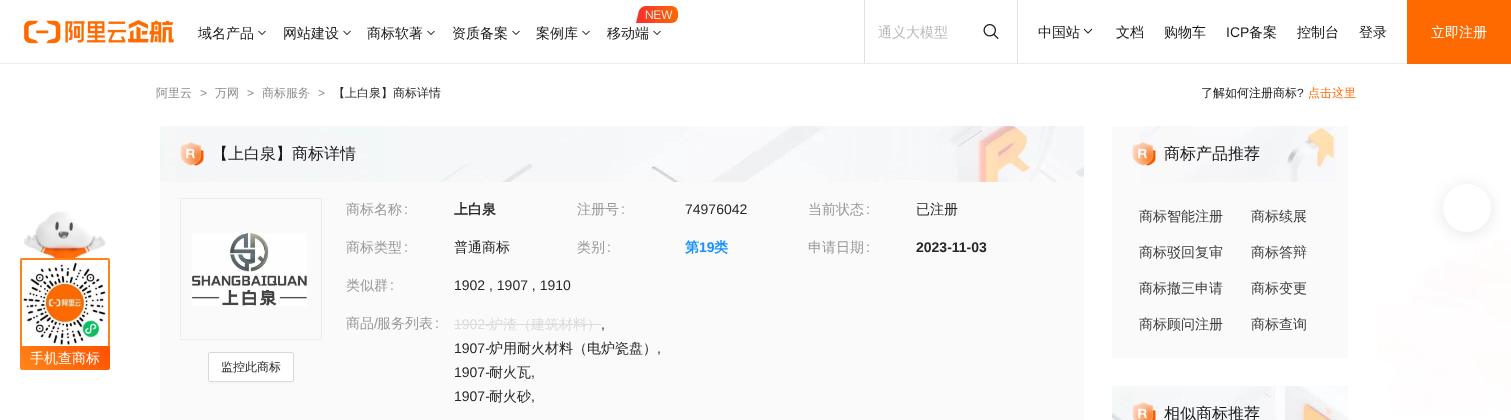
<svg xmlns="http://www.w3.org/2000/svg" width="1511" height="420">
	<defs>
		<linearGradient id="g1" gradientUnits="userSpaceOnUse" x1="37" y1="387" x2="94" y2="330"><stop offset="0" stop-color="#FF871A" /><stop offset="1" stop-color="#FF5000" /></linearGradient>
	</defs>
	<rect width="100%" height="100%" fill="#FFFFFF" />
	<rect x="0" y="63" width="1407" height="1" fill="#ECECEC" />
	<image x="24" y="20" width="150" height="24" href="assets/img1.png" />
	<text x="198" y="38" font-family="WenQuanYi Zen Hei" font-size="14" font-weight="500" fill="#181818">域名产品</text>
	<image x="258" y="30" width="8" height="5" href="assets/img2.png" />
	<text x="283" y="38" font-family="WenQuanYi Zen Hei" font-size="14" font-weight="500" fill="#181818">网站建设</text>
	<image x="343" y="30" width="8" height="5" href="assets/img2.png" />
	<text x="367" y="38" font-family="WenQuanYi Zen Hei" font-size="14" font-weight="500" fill="#181818">商标软著</text>
	<image x="427" y="30" width="8" height="5" href="assets/img2.png" />
	<text x="452" y="38" font-family="WenQuanYi Zen Hei" font-size="14" font-weight="500" fill="#181818">资质备案</text>
	<image x="512" y="30" width="8" height="5" href="assets/img2.png" />
	<text x="536" y="38" font-family="WenQuanYi Zen Hei" font-size="14" font-weight="500" fill="#181818">案例库</text>
	<image x="582" y="30" width="8" height="5" href="assets/img2.png" />
	<image x="636" y="6" width="42" height="17" href="assets/img3.png" />
	<text x="607" y="38" font-family="WenQuanYi Zen Hei" font-size="14" font-weight="500" fill="#181818">移动端</text>
	<image x="653" y="30" width="8" height="5" href="assets/img2.png" />
	<rect x="1017" y="0" width="1" height="63" fill="#E2E2E2" />
	<rect x="864" y="0" width="1" height="63" fill="#E2E2E2" />
	<text x="878" y="37" font-family="WenQuanYi Zen Hei" font-size="14" font-weight="500" fill="#BABABA">通义大模型</text>
	<image x="983" y="24" width="16" height="15" href="assets/img4.png" />
	<text x="1038" y="37" font-family="WenQuanYi Zen Hei" font-size="14" font-weight="500" fill="#181818">中国站</text>
	<image x="1083" y="28" width="10" height="6" href="assets/img5.png" />
	<g font-family="WenQuanYi Zen Hei" font-size="14" font-weight="500" fill="#181818">
		<text x="1116" y="37">文档</text>
		<text x="1164" y="37">购物车</text>
	</g>
	<text x="1226" y="37" font-family="Liberation Sans" font-size="14" fill="#181818">ICP</text>
	<g font-family="WenQuanYi Zen Hei" font-size="14" font-weight="500" fill="#181818">
		<text x="1249" y="37">备案</text>
		<text x="1297" y="37">控制台</text>
		<text x="1359" y="37">登录</text>
	</g>
	<rect x="1407" y="0" width="104" height="64" fill="#FF6A00" />
	<text x="1431" y="37" font-family="WenQuanYi Zen Hei" font-size="14" font-weight="500" fill="#FFFFFF">立即注册</text>
	<image x="1377" y="240" width="134" height="170" href="assets/img6.png" />
	<rect x="1443" y="186" width="48" height="48" rx="24" fill="#000000" fill-opacity="0.1" filter="blur(7.5px)" />
	<circle cx="1467" cy="208" r="24" fill="#FFFFFF" />
	<image x="24" y="211" width="82" height="47" href="assets/img7.png" />
	<path d="M22 259H108C108.5 259 109 259.5 109 260V347H21V260C21 259.5 21.5 259 22 259Z" fill="none" stroke="#FF8319" stroke-width="2" />
	<image x="22" y="260" width="86" height="86" href="assets/img8.png" />
	<rect x="20" y="346" width="90" height="24" rx="2" fill="url(#g1)" />
	<text x="30" y="363" font-family="WenQuanYi Zen Hei" font-size="14" font-weight="500" fill="#FFFFFF">手机查商标</text>
	<text x="156" y="97" font-family="WenQuanYi Zen Hei" font-size="12" font-weight="500" fill="#8C8C8C">阿里云</text>
	<text x="200" y="97" font-family="Liberation Sans" font-size="12" fill="#8C8C8C">&gt;</text>
	<text x="215" y="97" font-family="WenQuanYi Zen Hei" font-size="12" font-weight="500" fill="#8C8C8C">万网</text>
	<text x="247" y="97" font-family="Liberation Sans" font-size="12" fill="#8C8C8C">&gt;</text>
	<text x="262" y="97" font-family="WenQuanYi Zen Hei" font-size="12" font-weight="500" fill="#8C8C8C">商标服务</text>
	<text x="318" y="97" font-family="Liberation Sans" font-size="12" fill="#8C8C8C">&gt;</text>
	<text x="333" y="97" font-family="WenQuanYi Zen Hei" font-size="12" font-weight="500" fill="#262626">【上白泉】商标详情</text>
	<text x="1201" y="97" font-family="WenQuanYi Zen Hei" font-size="12" font-weight="500" fill="#181818">了解如何注册商标</text>
	<text x="1297" y="97" font-family="Liberation Sans" font-size="12" fill="#181818">?</text>
	<text x="1308" y="97" font-family="WenQuanYi Zen Hei" font-size="12" font-weight="500" fill="#FF6A00">点击这里</text>
	<rect x="160" y="182" width="924" height="238" fill="#FAFAFA" />
	<image x="160" y="126" width="924" height="56" href="assets/img9.png" />
	<image x="180" y="142" width="24" height="24" href="assets/img10.png" />
	<text x="212" y="159" font-family="WenQuanYi Zen Hei" font-size="16" font-weight="500" fill="#181818">【上白泉】商标详情</text>
	<rect x="180.5" y="198.5" width="141" height="141" fill="none" stroke="#EDEDED" />
	<image x="192" y="233" width="115" height="73" href="assets/img11.png" />
	<path d="M208 380V382C208 383 209 384 210 384H292C293 384 294 383 294 382V380C294 381 293 382 292 382H210C209 382 208 381 208 380Z" fill="#F6F6F6" />
	<rect x="208.5" y="352.5" width="85" height="29" rx="1.5" fill="#FFFFFF" stroke="#D9D9D9" />
	<text x="221" y="371" font-family="WenQuanYi Zen Hei" font-size="12" font-weight="500" fill="#262626">监控此商标</text>
	<text x="346" y="214" font-family="WenQuanYi Zen Hei" font-size="14" font-weight="500" fill="#999999">商标名称</text>
	<text x="404" y="214" font-family="Liberation Sans" font-size="14" fill="#999999">:</text>
	<text x="454" y="214" font-family="WenQuanYi Zen Hei" font-size="14" font-weight="700" fill="#262626">上白泉</text>
	<text x="577" y="214" font-family="WenQuanYi Zen Hei" font-size="14" font-weight="500" fill="#999999">注册号</text>
	<text x="621" y="214" font-family="Liberation Sans" font-size="14" fill="#999999">:</text>
	<text x="685" y="214" font-family="Liberation Sans" font-size="14" fill="#262626">74976042</text>
	<text x="808" y="214" font-family="WenQuanYi Zen Hei" font-size="14" font-weight="500" fill="#999999">当前状态</text>
	<text x="866" y="214" font-family="Liberation Sans" font-size="14" fill="#999999">:</text>
	<text x="916" y="214" font-family="WenQuanYi Zen Hei" font-size="14" font-weight="500" fill="#262626">已注册</text>
	<text x="346" y="252" font-family="WenQuanYi Zen Hei" font-size="14" font-weight="500" fill="#999999">商标类型</text>
	<text x="404" y="252" font-family="Liberation Sans" font-size="14" fill="#999999">:</text>
	<text x="454" y="252" font-family="WenQuanYi Zen Hei" font-size="14" font-weight="500" fill="#262626">普通商标</text>
	<text x="577" y="252" font-family="WenQuanYi Zen Hei" font-size="14" font-weight="500" fill="#999999">类别</text>
	<text x="607" y="252" font-family="Liberation Sans" font-size="14" fill="#999999">:</text>
	<text x="685" y="252" font-family="WenQuanYi Zen Hei" font-size="14" font-weight="700" fill="#1890FF">第</text>
	<text x="699" y="252" font-family="Liberation Sans" font-size="14" font-weight="700" fill="#1890FF">19</text>
	<text x="714" y="252" font-family="WenQuanYi Zen Hei" font-size="14" font-weight="700" fill="#1890FF">类</text>
	<text x="808" y="252" font-family="WenQuanYi Zen Hei" font-size="14" font-weight="500" fill="#999999">申请日期</text>
	<text x="866" y="252" font-family="Liberation Sans" font-size="14" fill="#999999">:</text>
	<text x="916" y="252" font-family="Liberation Sans" font-size="14" font-weight="700" fill="#262626">2023-11-03</text>
	<text x="346" y="290" font-family="WenQuanYi Zen Hei" font-size="14" font-weight="500" fill="#999999">类似群</text>
	<text x="390" y="290" font-family="Liberation Sans" font-size="14" fill="#999999">:</text>
	<text x="454" y="290" font-family="Liberation Sans" font-size="14" fill="#262626">1902 , 1907 , 1910</text>
	<text x="346" y="328" font-family="WenQuanYi Zen Hei" font-size="14" font-weight="500" fill="#999999">商品</text>
	<text x="374" y="328" font-family="Liberation Sans" font-size="14" fill="#999999">/</text>
	<text x="377" y="328" font-family="WenQuanYi Zen Hei" font-size="14" font-weight="500" fill="#999999">服务列表</text>
	<text x="435" y="328" font-family="Liberation Sans" font-size="14" fill="#999999">:</text>
	<text x="454" y="329" font-family="Liberation Sans" font-size="14" fill="#DCDCDC">1902-</text>
	<rect x="454" y="324" width="147" height="1" fill="#DCDCDC" />
	<text x="489" y="329" font-family="WenQuanYi Zen Hei" font-size="14" font-weight="500" fill="#DCDCDC">炉渣（建筑材料）</text>
	<g font-family="Liberation Sans" font-size="14" fill="#262626">
		<text x="601" y="329">,</text>
		<text x="454" y="353">1907-</text>
	</g>
	<text x="489" y="353" font-family="WenQuanYi Zen Hei" font-size="14" font-weight="500" fill="#262626">炉用耐火材料（电炉瓷盘）</text>
	<g font-family="Liberation Sans" font-size="14" fill="#262626">
		<text x="657" y="353">,</text>
		<text x="454" y="377">1907-</text>
	</g>
	<text x="489" y="377" font-family="WenQuanYi Zen Hei" font-size="14" font-weight="500" fill="#262626">耐火瓦</text>
	<g font-family="Liberation Sans" font-size="14" fill="#262626">
		<text x="531" y="377">,</text>
		<text x="454" y="401">1907-</text>
	</g>
	<text x="489" y="401" font-family="WenQuanYi Zen Hei" font-size="14" font-weight="500" fill="#262626">耐火砂</text>
	<text x="531" y="401" font-family="Liberation Sans" font-size="14" fill="#262626">,</text>
	<rect x="1112" y="126" width="236" height="232" fill="#FAFAFA" />
	<image x="1140" y="126" width="196" height="56" href="assets/img12.png" />
	<image x="1132" y="142" width="24" height="24" href="assets/img13.png" />
	<text x="1164" y="159" font-family="WenQuanYi Zen Hei" font-size="16" font-weight="500" fill="#181818">商标产品推荐</text>
	<g font-family="WenQuanYi Zen Hei" font-size="14" font-weight="500" fill="#3D3D3D">
		<text x="1139" y="221">商标智能注册</text>
		<text x="1251" y="221">商标续展</text>
		<text x="1139" y="257">商标驳回复审</text>
		<text x="1251" y="257">商标答辩</text>
		<text x="1139" y="293">商标撤三申请</text>
		<text x="1251" y="293">商标变更</text>
		<text x="1139" y="329">商标顾问注册</text>
		<text x="1251" y="329">商标查询</text>
	</g>
	<image x="1112" y="386" width="236" height="34" href="assets/img14.png" />
	<image x="1132" y="402" width="24" height="18" href="assets/img15.png" />
	<text x="1164" y="419" font-family="WenQuanYi Zen Hei" font-size="16" font-weight="500" fill="#181818">相似商标推荐</text>
</svg>
